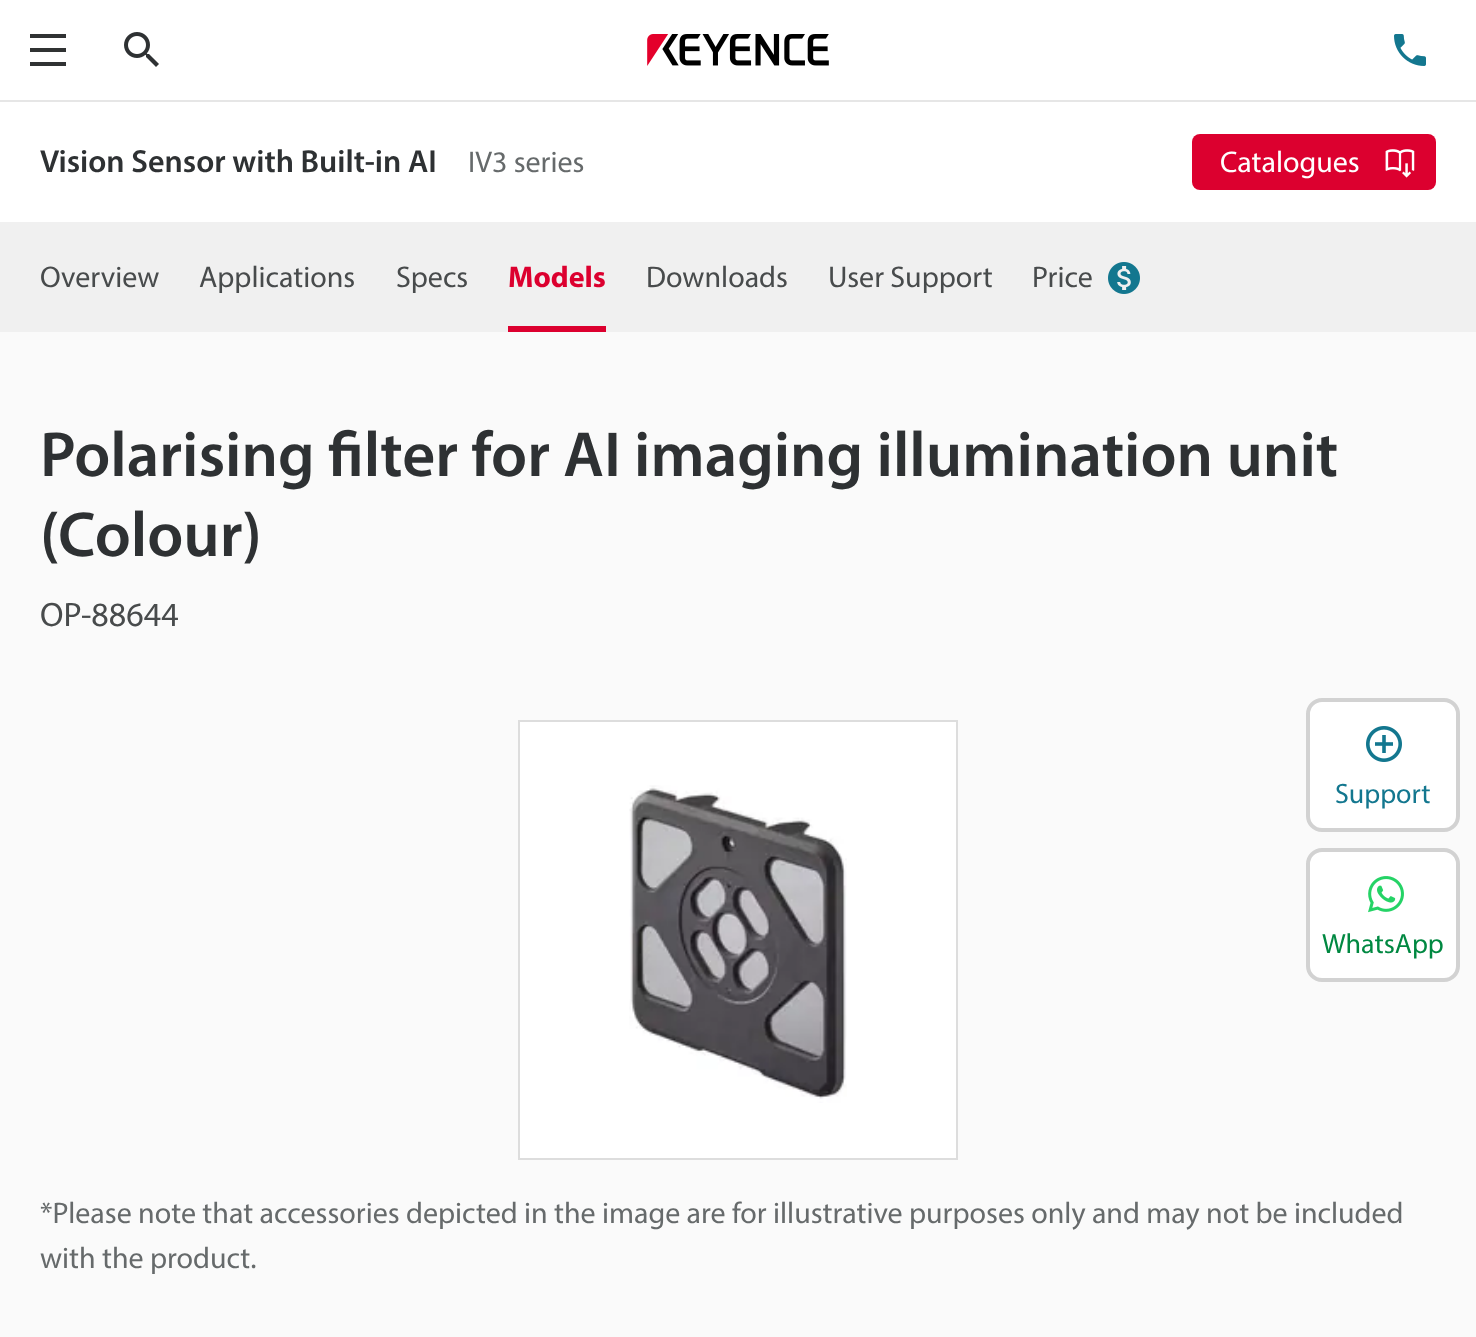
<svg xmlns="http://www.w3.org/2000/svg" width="1476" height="1337">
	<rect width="100%" height="100%" fill="#FAFAFA" />
	<rect x="0" y="0" width="1476" height="100" fill="#FFFFFF" />
	<image x="124" y="32" width="35" height="35" href="assets/img1.png" />
	<rect x="0" y="100" width="1476" height="2" fill="#E6E6E6" />
	<image x="647" y="34" width="182" height="32" href="assets/img2.png" />
	<rect x="30" y="34" width="36" height="4" fill="#303233" />
	<rect x="30" y="48" width="36" height="4" fill="#303233" />
	<rect x="30" y="62" width="36" height="4" fill="#303233" />
	<image x="1394" y="34" width="32" height="32" href="assets/img3.png" />
	<rect x="0" y="102" width="1476" height="120" fill="#FFFFFF" />
	<text x="40" y="172" font-family="Myriad" font-size="32" font-weight="600" fill="#2E3133">Vision Sensor with Built-in AI</text>
	<text x="468" y="172" font-family="Myriad" font-size="30" fill="#666A6B">IV3 series</text>
	<rect x="1192" y="134" width="244" height="56" rx="8" fill="#DC002F" />
	<text x="1220" y="172" font-family="Myriad" font-size="30" fill="#FFFFFF">Catalogues</text>
	<image x="1385" y="149" width="30" height="29" href="assets/img4.png" />
	<rect x="0" y="222" width="1476" height="110" fill="#F0F0F0" />
	<g font-family="Myriad" font-size="30" fill="#484B4C">
		<text x="40" y="287">Overview</text>
		<text x="199" y="287">Applications</text>
		<text x="396" y="287">Specs</text>
	</g>
	<rect x="508" y="326" width="98" height="6" fill="#DC002F" />
	<text x="508" y="287" font-family="Myriad" font-size="30" font-weight="700" fill="#DC002F">Models</text>
	<g font-family="Myriad" font-size="30" fill="#484B4C">
		<text x="646" y="287">Downloads</text>
		<text x="828" y="287">User Support</text>
		<text x="1032" y="287">Price</text>
	</g>
	<image x="1108" y="262" width="32" height="32" href="assets/img5.png" />
	<g font-family="Myriad" font-size="64" font-weight="600" fill="#2E3133">
		<text x="40" y="476">Polarising filter for AI imaging illumination unit</text>
		<text x="40" y="556">(Colour)</text>
	</g>
	<text x="40" y="626" font-family="Myriad" font-size="34" fill="#484B4C">OP-88644</text>
	<rect x="519" y="721" width="438" height="438" fill="#FFFFFF" stroke="#DDDDDD" stroke-width="2" />
	<image x="629" y="785" width="218" height="318" href="assets/img6.png" />
	<g font-family="Myriad" font-size="30" fill="#666A6B">
		<text x="40" y="1223">*Please note that accessories depicted in the image are for illustrative purposes only and may not be included</text>
		<text x="40" y="1268">with the product.</text>
	</g>
	<rect x="1308" y="700" width="150" height="130" rx="14" fill="#FFFFFF" stroke="#D2D2D2" stroke-width="4" />
	<image x="1366" y="726" width="36" height="36" href="assets/img7.png" />
	<text x="1335" y="803" font-family="Myriad" font-size="28" fill="#13778F">Support</text>
	<rect x="1308" y="850" width="150" height="130" rx="14" fill="#FFFFFF" stroke="#D2D2D2" stroke-width="4" />
	<image x="1368" y="876" width="36" height="37" href="assets/img8.png" />
	<text x="1322" y="953" font-family="Myriad" font-size="28" fill="#008841">WhatsApp</text>
</svg>
